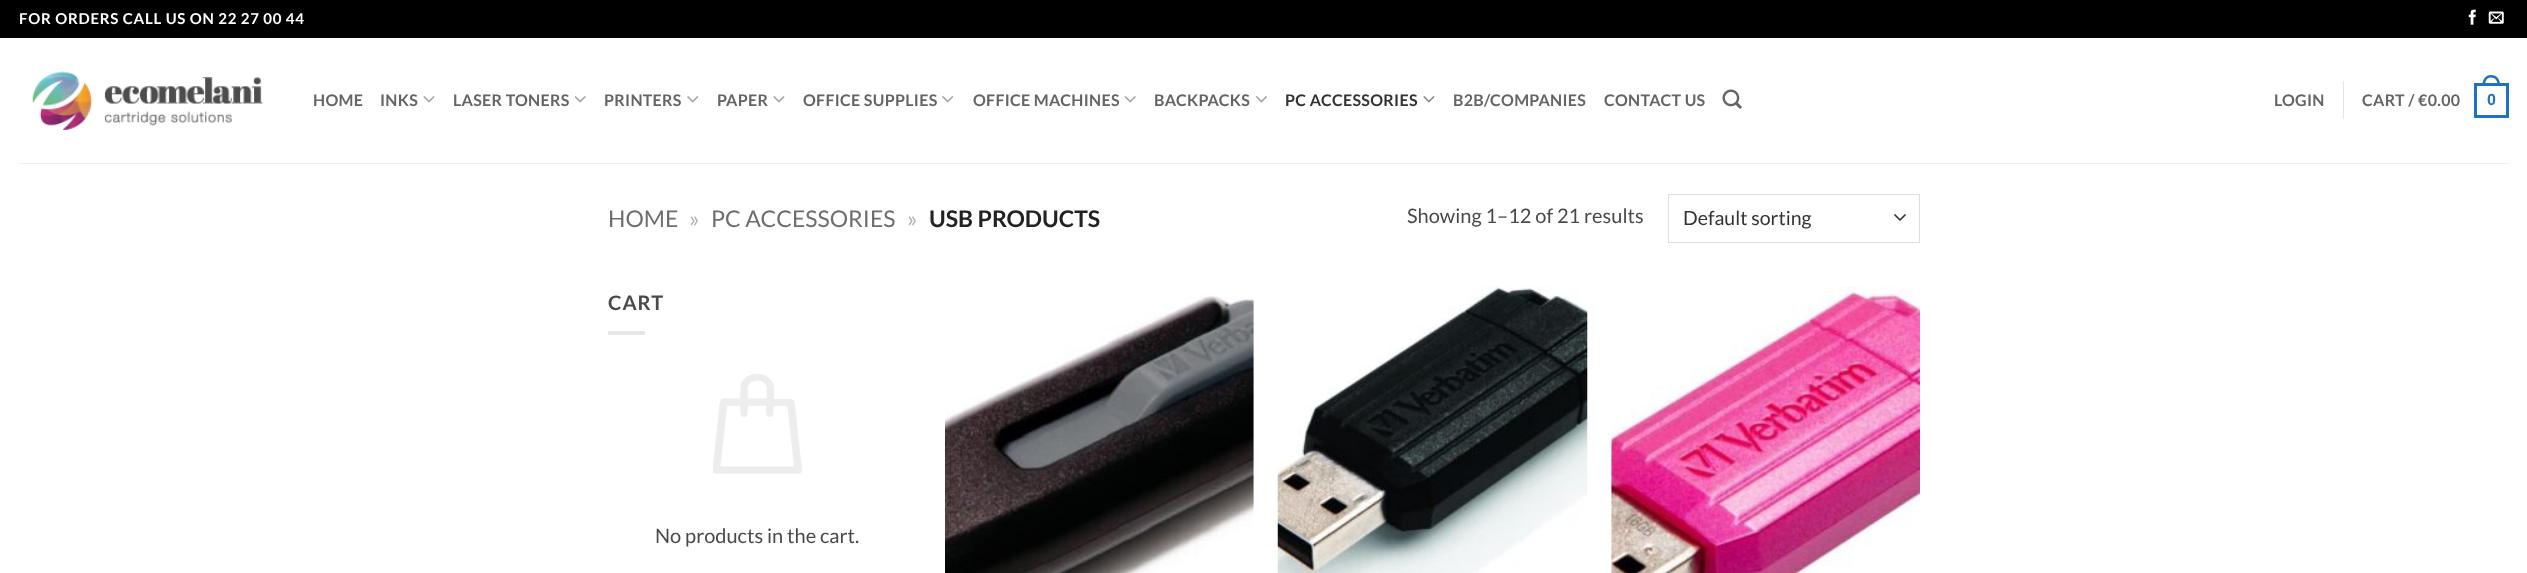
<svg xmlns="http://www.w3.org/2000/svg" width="2527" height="573">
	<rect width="100%" height="100%" fill="#FFFFFF" />
	<rect x="0" y="0" width="2527" height="38" fill="#000000" />
	<text x="19" y="24" font-family="Lato" font-size="15" font-weight="700" letter-spacing="0.75" fill="#FFFFFF">FOR ORDERS CALL US ON 22 27 00 44</text>
	<image x="2468" y="9" width="8" height="16" href="assets/img1.png" />
	<image x="2488" y="11" width="16" height="13" href="assets/img2.png" />
	<image x="32" y="71" width="232" height="59" href="assets/img3.png" />
	<g font-family="Lato" font-size="16" font-weight="700" letter-spacing="0.3" fill="#656565">
		<text x="313" y="106">HOME</text>
		<text x="380" y="106">INKS</text>
	</g>
	<image x="423" y="96" width="12" height="7" href="assets/img4.png" />
	<text x="453" y="106" font-family="Lato" font-size="16" font-weight="700" letter-spacing="0.3" fill="#656565">LASER TONERS</text>
	<image x="574" y="96" width="12" height="7" href="assets/img5.png" />
	<text x="604" y="106" font-family="Lato" font-size="16" font-weight="700" letter-spacing="0.3" fill="#656565">PRINTERS</text>
	<image x="687" y="96" width="12" height="7" href="assets/img6.png" />
	<text x="717" y="106" font-family="Lato" font-size="16" font-weight="700" letter-spacing="0.3" fill="#656565">PAPER</text>
	<image x="773" y="96" width="12" height="7" href="assets/img4.png" />
	<text x="803" y="106" font-family="Lato" font-size="16" font-weight="700" letter-spacing="0.3" fill="#656565">OFFICE SUPPLIES</text>
	<image x="942" y="96" width="12" height="7" href="assets/img6.png" />
	<text x="973" y="106" font-family="Lato" font-size="16" font-weight="700" letter-spacing="0.3" fill="#656565">OFFICE MACHINES</text>
	<image x="1124" y="96" width="12" height="7" href="assets/img5.png" />
	<text x="1154" y="106" font-family="Lato" font-size="16" font-weight="700" letter-spacing="0.3" fill="#656565">BACKPACKS</text>
	<image x="1256" y="96" width="11" height="7" href="assets/img7.png" />
	<text x="1285" y="106" font-family="Lato" font-size="16" font-weight="700" letter-spacing="0.3" fill="#333333">PC ACCESSORIES</text>
	<image x="1423" y="96" width="12" height="7" href="assets/img8.png" />
	<g font-family="Lato" font-size="16" font-weight="700" letter-spacing="0.3" fill="#656565">
		<text x="1453" y="106">B2B/COMPANIES</text>
		<text x="1604" y="106">CONTACT US</text>
	</g>
	<image x="1722" y="89" width="20" height="20" href="assets/img9.png" />
	<text x="2274" y="106" font-family="Lato" font-size="16" font-weight="700" letter-spacing="0.3" fill="#656565">LOGIN</text>
	<rect x="2343" y="81" width="1" height="38" fill="#E6E6E6" />
	<text x="2362" y="106" font-family="Lato" font-size="16" font-weight="700" letter-spacing="0.3" fill="#656565">CART / €0.00</text>
	<rect x="2475.5" y="84.5" width="32" height="32" fill="none" stroke="#1E73BE" stroke-width="3" />
	<path d="M2491 75C2497 75 2500 79.5 2500 85H2482.5C2482.5 79.5 2485.5 75 2491 75ZM2491 77.5C2495.5 77.5 2497.5 81 2497.5 85H2485C2485 81 2487 77.5 2491 77.5Z" fill="#1E73BE" fill-rule="evenodd" />
	<text x="2487" y="105" font-family="Liberation Sans" font-size="16" font-weight="700" letter-spacing="0.3" fill="#1E73BE">0</text>
	<rect x="19" y="163" width="2490" height="1" fill="#EDEDED" />
	<text x="608" y="227" font-family="Lato" font-size="23" fill="#6E6E6E">HOME</text>
	<text x="689" y="227" font-family="Lato" font-size="23" fill="#B2B2B2">»</text>
	<text x="711" y="227" font-family="Lato" font-size="23" fill="#6E6E6E">PC ACCESSORIES</text>
	<text x="907" y="227" font-family="Lato" font-size="23" fill="#B2B2B2">»</text>
	<text x="929" y="227" font-family="Lato" font-size="23" font-weight="700" fill="#222222">USB PRODUCTS</text>
	<text x="1407" y="223" font-family="Lato" font-size="20" fill="#4A4A4A">Showing 1–12 of 21 results</text>
	<path d="M1895 215L1900 220L1905 215" fill="none" stroke="#333333" stroke-width="1.7" stroke-linecap="round" stroke-linejoin="round" />
	<rect x="1668.5" y="194.5" width="251" height="48" fill="none" stroke="#DDDDDD" />
	<text x="1683" y="225" font-family="Lato" font-size="19.5" fill="#333333">Default sorting</text>
	<text x="608" y="310" font-family="Lato" font-size="20" font-weight="700" letter-spacing="1" fill="#4A4A4A">CART</text>
	<rect x="608" y="331" width="37" height="4" fill="#E6E6E6" />
	<image x="713" y="374" width="89" height="100" href="assets/img10.png" />
	<text x="655" y="543" font-family="Lato" font-size="20" fill="#4A4A4A">No products in the cart.</text>
	<image x="945" y="296" width="309" height="277" href="assets/img11.png" />
	<image x="1277" y="286" width="311" height="287" href="assets/img12.png" />
	<image x="1611" y="286" width="309" height="287" href="assets/img13.png" />
</svg>
